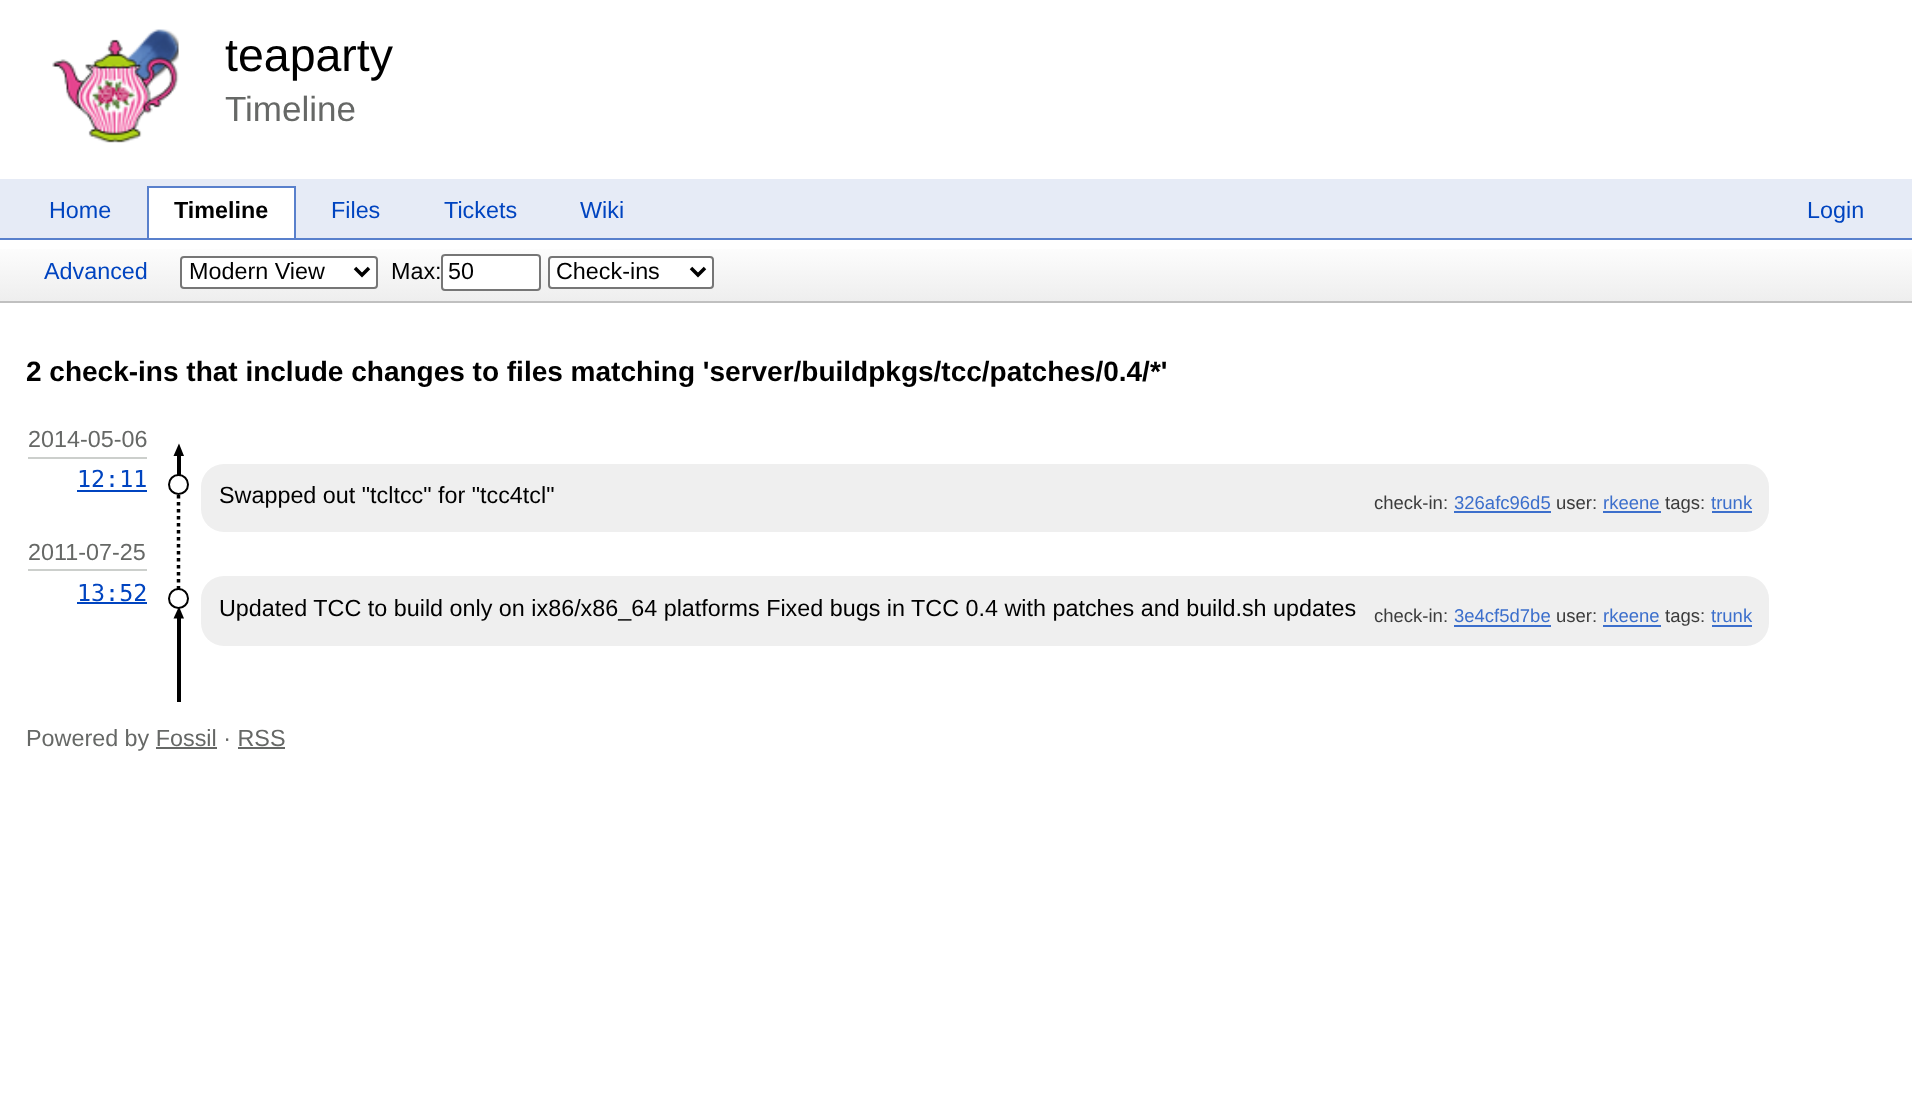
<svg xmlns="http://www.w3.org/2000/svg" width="1912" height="1120">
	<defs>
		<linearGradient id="g1" gradientUnits="userSpaceOnUse" x1="0" y1="301" x2="0" y2="240"><stop offset="0" stop-color="#EEEEEE" /><stop offset="1" stop-color="#FFFFFF" /></linearGradient>
	</defs>
	<rect width="100%" height="100%" fill="#FFFFFF" />
	<image x="52" y="29" width="127" height="114" href="assets/img1.png" />
	<text x="225" y="71" font-family="Liberation Sans" font-size="46.5" fill="#000000">teaparty</text>
	<text x="225" y="121" font-family="Liberation Sans" font-size="35" fill="#666866">Timeline</text>
	<rect x="0" y="179" width="1912" height="59" fill="#E6EBF6" />
	<rect x="0" y="238" width="1912" height="2" fill="#5980CC" />
	<text x="49" y="218" font-family="Liberation Sans" font-size="23.35" fill="#0044C0">Home</text>
	<rect x="149" y="188" width="145" height="50" fill="#FFFFFF" />
	<text x="174" y="218" font-family="Liberation Sans" font-size="23.35" font-weight="700" fill="#000000">Timeline</text>
	<rect x="147" y="186" width="149" height="2" fill="#5980CC" />
	<rect x="294" y="186" width="2" height="52" fill="#5980CC" />
	<rect x="147" y="186" width="2" height="52" fill="#5980CC" />
	<g font-family="Liberation Sans" font-size="23.35" fill="#0044C0">
		<text x="331" y="218">Files</text>
		<text x="444" y="218">Tickets</text>
		<text x="580" y="218">Wiki</text>
		<text x="1807" y="218">Login</text>
	</g>
	<rect x="0" y="249" width="1912" height="52" fill="url(#g1)" />
	<rect x="0" y="301" width="1912" height="2" fill="#C0C0C0" />
	<text x="44" y="279" font-family="Liberation Sans" font-size="23.35" fill="#0044C0">Advanced</text>
	<rect x="181" y="257" width="196" height="31" rx="3" fill="#FFFFFF" stroke="#767676" stroke-width="2" />
	<path d="M355 268L362 275L369 268" fill="none" stroke="#000000" stroke-width="3.5" />
	<g font-family="Liberation Sans" font-size="23.35" fill="#000000">
		<text x="189" y="279">Modern View</text>
		<text x="391" y="279">Max:</text>
	</g>
	<rect x="442" y="255" width="98" height="35" rx="3" fill="#FFFFFF" stroke="#767676" stroke-width="2" />
	<text x="448" y="279" font-family="Liberation Sans" font-size="23.35" fill="#000000">50</text>
	<rect x="549" y="257" width="164" height="31" rx="3" fill="#FFFFFF" stroke="#767676" stroke-width="2" />
	<path d="M691 268L698 275L705 268" fill="none" stroke="#000000" stroke-width="3.5" />
	<text x="556" y="279" font-family="Liberation Sans" font-size="23.35" fill="#000000">Check-ins</text>
	<text x="26" y="381" font-family="Liberation Sans" font-size="28" font-weight="700" fill="#000000">2 check-ins that include changes to files matching 'server/buildpkgs/tcc/patches/0.4/*'</text>
	<rect x="28" y="457" width="119" height="2" fill="#CCCFCC" />
	<text x="28" y="447" font-family="Liberation Sans" font-size="23.35" fill="#666866">2014-05-06</text>
	<rect x="177" y="453" width="4" height="22" fill="#000000" />
	<path d="M184 456H173.5L179 443.5Z" fill="#000000" />
	<circle cx="178.5" cy="484.5" r="9.5" fill="#FFFFFF" stroke="#000000" stroke-width="2" />
	<path d="M178.5 495V598.5" fill="none" stroke="#000000" stroke-width="3.5" stroke-dasharray="3.5 3.5" />
	<rect x="177" y="616" width="4" height="86" fill="#000000" />
	<path d="M184 618.5H173.5L179 606.5Z" fill="#000000" />
	<circle cx="178.5" cy="598.5" r="9.5" fill="#FFFFFF" stroke="#000000" stroke-width="2" />
	<text x="77" y="487" font-family="DejaVu Sans Mono" font-size="23.35" fill="#0044C0">12:11</text>
	<rect x="77" y="490" width="70" height="2" fill="#0044C0" />
	<rect x="201" y="464" width="1568" height="68" rx="23" fill="#EFEFEF" />
	<text x="219" y="503" font-family="Liberation Sans" font-size="23.35" fill="#000000">Swapped out "tcltcc" for "tcc4tcl"</text>
	<text x="1374" y="509" font-family="Liberation Sans" font-size="18.5" fill="#3C3C3C">check-in:</text>
	<text x="1454" y="509" font-family="Liberation Sans" font-size="18.5" fill="#3C6FCC">326afc96d5</text>
	<rect x="1454" y="511" width="97" height="2" fill="#3C6FCC" />
	<text x="1556" y="509" font-family="Liberation Sans" font-size="18.5" fill="#3C3C3C">user:</text>
	<text x="1603" y="509" font-family="Liberation Sans" font-size="18.5" fill="#3C6FCC">rkeene</text>
	<rect x="1603" y="511" width="58" height="2" fill="#3C6FCC" />
	<text x="1665" y="509" font-family="Liberation Sans" font-size="18.5" fill="#3C3C3C">tags:</text>
	<text x="1711" y="509" font-family="Liberation Sans" font-size="18.5" fill="#3C6FCC">trunk</text>
	<rect x="1712" y="511" width="40" height="2" fill="#3C6FCC" />
	<rect x="28" y="569" width="119" height="2" fill="#CCCFCC" />
	<text x="28" y="560" font-family="Liberation Sans" font-size="23.35" fill="#666866">2011-07-25</text>
	<text x="77" y="601" font-family="DejaVu Sans Mono" font-size="23.35" fill="#0044C0">13:52</text>
	<rect x="77" y="602" width="70" height="2" fill="#0044C0" />
	<rect x="201" y="576" width="1568" height="70" rx="23" fill="#EFEFEF" />
	<text x="219" y="616" font-family="Liberation Sans" font-size="23.35" fill="#000000">Updated TCC to build only on ix86/x86_64 platforms Fixed bugs in TCC 0.4 with patches and build.sh updates</text>
	<text x="1374" y="622" font-family="Liberation Sans" font-size="18.5" fill="#3C3C3C">check-in:</text>
	<text x="1454" y="622" font-family="Liberation Sans" font-size="18.5" fill="#3C6FCC">3e4cf5d7be</text>
	<rect x="1454" y="625" width="97" height="2" fill="#3C6FCC" />
	<text x="1556" y="622" font-family="Liberation Sans" font-size="18.5" fill="#3C3C3C">user:</text>
	<text x="1603" y="622" font-family="Liberation Sans" font-size="18.5" fill="#3C6FCC">rkeene</text>
	<rect x="1603" y="625" width="58" height="2" fill="#3C6FCC" />
	<text x="1665" y="622" font-family="Liberation Sans" font-size="18.5" fill="#3C3C3C">tags:</text>
	<text x="1711" y="622" font-family="Liberation Sans" font-size="18.5" fill="#3C6FCC">trunk</text>
	<rect x="1712" y="625" width="40" height="2" fill="#3C6FCC" />
	<text x="26" y="746" font-family="Liberation Sans" font-size="23.35" fill="#666866">Powered by Fossil · RSS</text>
	<rect x="156" y="747" width="61" height="2" fill="#666866" />
	<rect x="238" y="747" width="47" height="2" fill="#666866" />
</svg>
